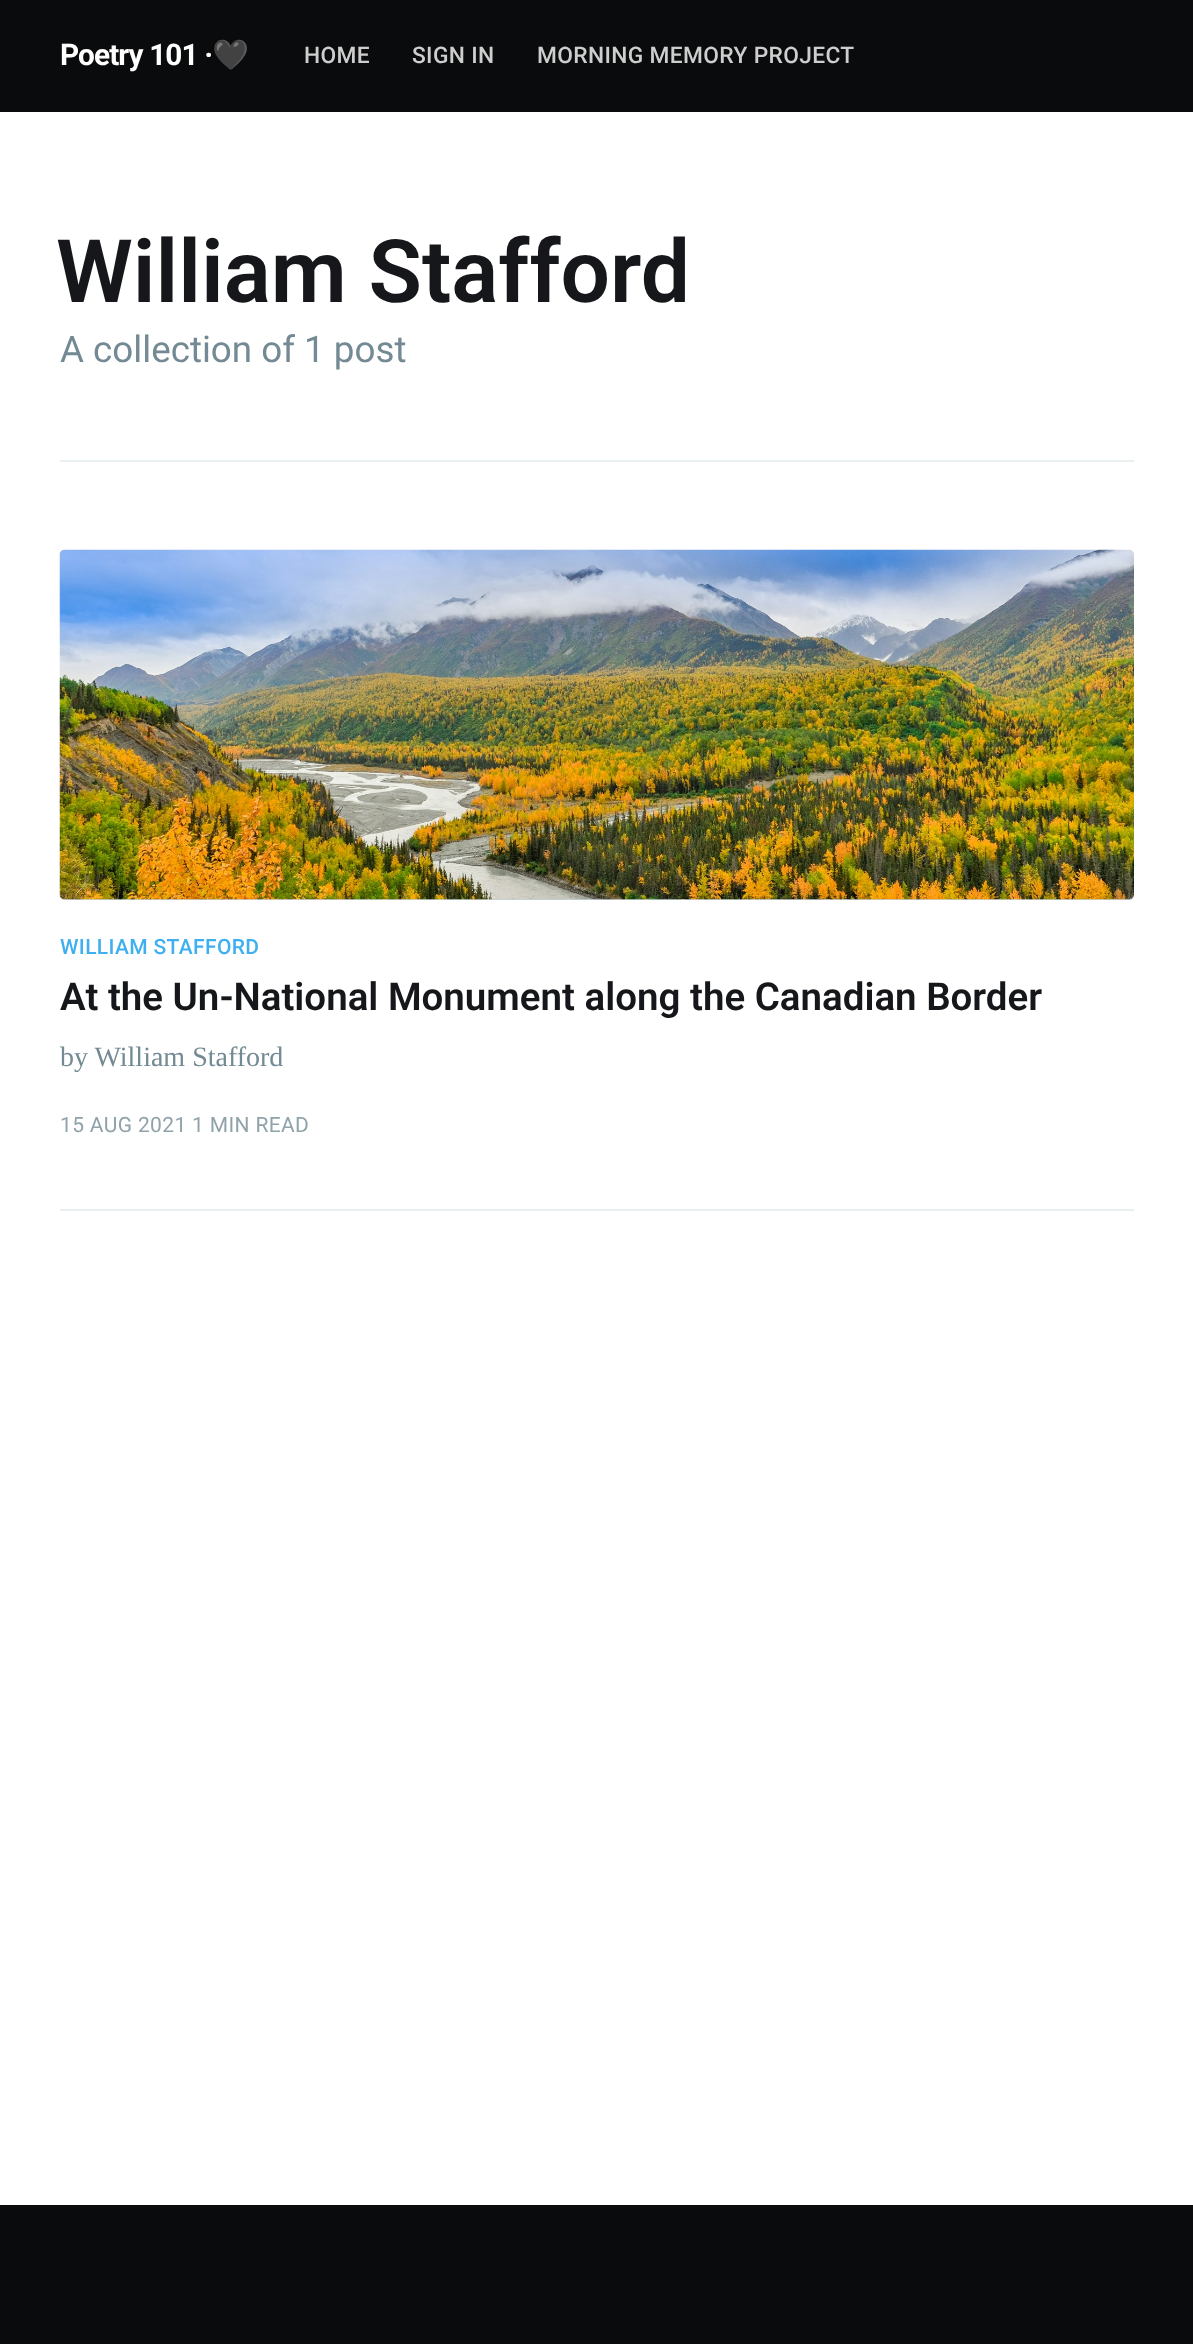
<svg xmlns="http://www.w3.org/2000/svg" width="1193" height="2344">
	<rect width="100%" height="100%" fill="#FFFFFF" />
	<rect x="0" y="0" width="1193" height="112" fill="#0A0B0C" />
	<text x="60" y="65" font-family="Roboto" font-size="29.75" font-weight="700" letter-spacing="-0.9" fill="#FFFFFF">Poetry 101 ·</text>
	<text x="212" y="65" font-family="Noto Color Emoji" font-size="29.75" font-weight="700" letter-spacing="-0.9" fill="#FFFFFF">🖤</text>
	<g font-family="Roboto" font-size="22.75" font-weight="500" letter-spacing="0.35" fill="#CECECE">
		<text x="304" y="63">HOME</text>
		<text x="412" y="63">SIGN IN</text>
		<text x="537" y="63">MORNING MEMORY PROJECT</text>
	</g>
	<rect x="60" y="460" width="1074" height="2" fill="#EAEFF1" />
	<text x="56" y="302" font-family="Roboto" font-size="87.5" font-weight="600" fill="#15171A">William Stafford</text>
	<text x="60" y="362" font-family="Roboto" font-size="36.75" fill="#738A94">A collection of 1 post</text>
	<rect x="60" y="1209" width="1074" height="2" fill="#EAEFF1" />
	<rect x="60" y="550" width="1074" height="350" rx="5" fill="#C5D2D9" />
	<image x="59" y="549" width="1075" height="351" href="assets/img1.png" />
	<text x="60" y="954" font-family="Roboto" font-size="21" font-weight="500" letter-spacing="0.35" fill="#3EB0EF">WILLIAM STAFFORD</text>
	<text x="60" y="1010" font-family="Roboto" font-size="38.5" font-weight="600" fill="#15171A">At the Un-National Monument along the Canadian Border</text>
	<text x="60" y="1066" font-family="Liberation Serif" font-size="28" fill="#738A94">by William Stafford</text>
	<text x="60" y="1132" font-family="Roboto" font-size="21" letter-spacing="0.35" fill="#90A2AA">15 AUG 2021 1 MIN READ</text>
	<rect x="0" y="2205" width="1193" height="139" fill="#0A0B0C" />
</svg>
